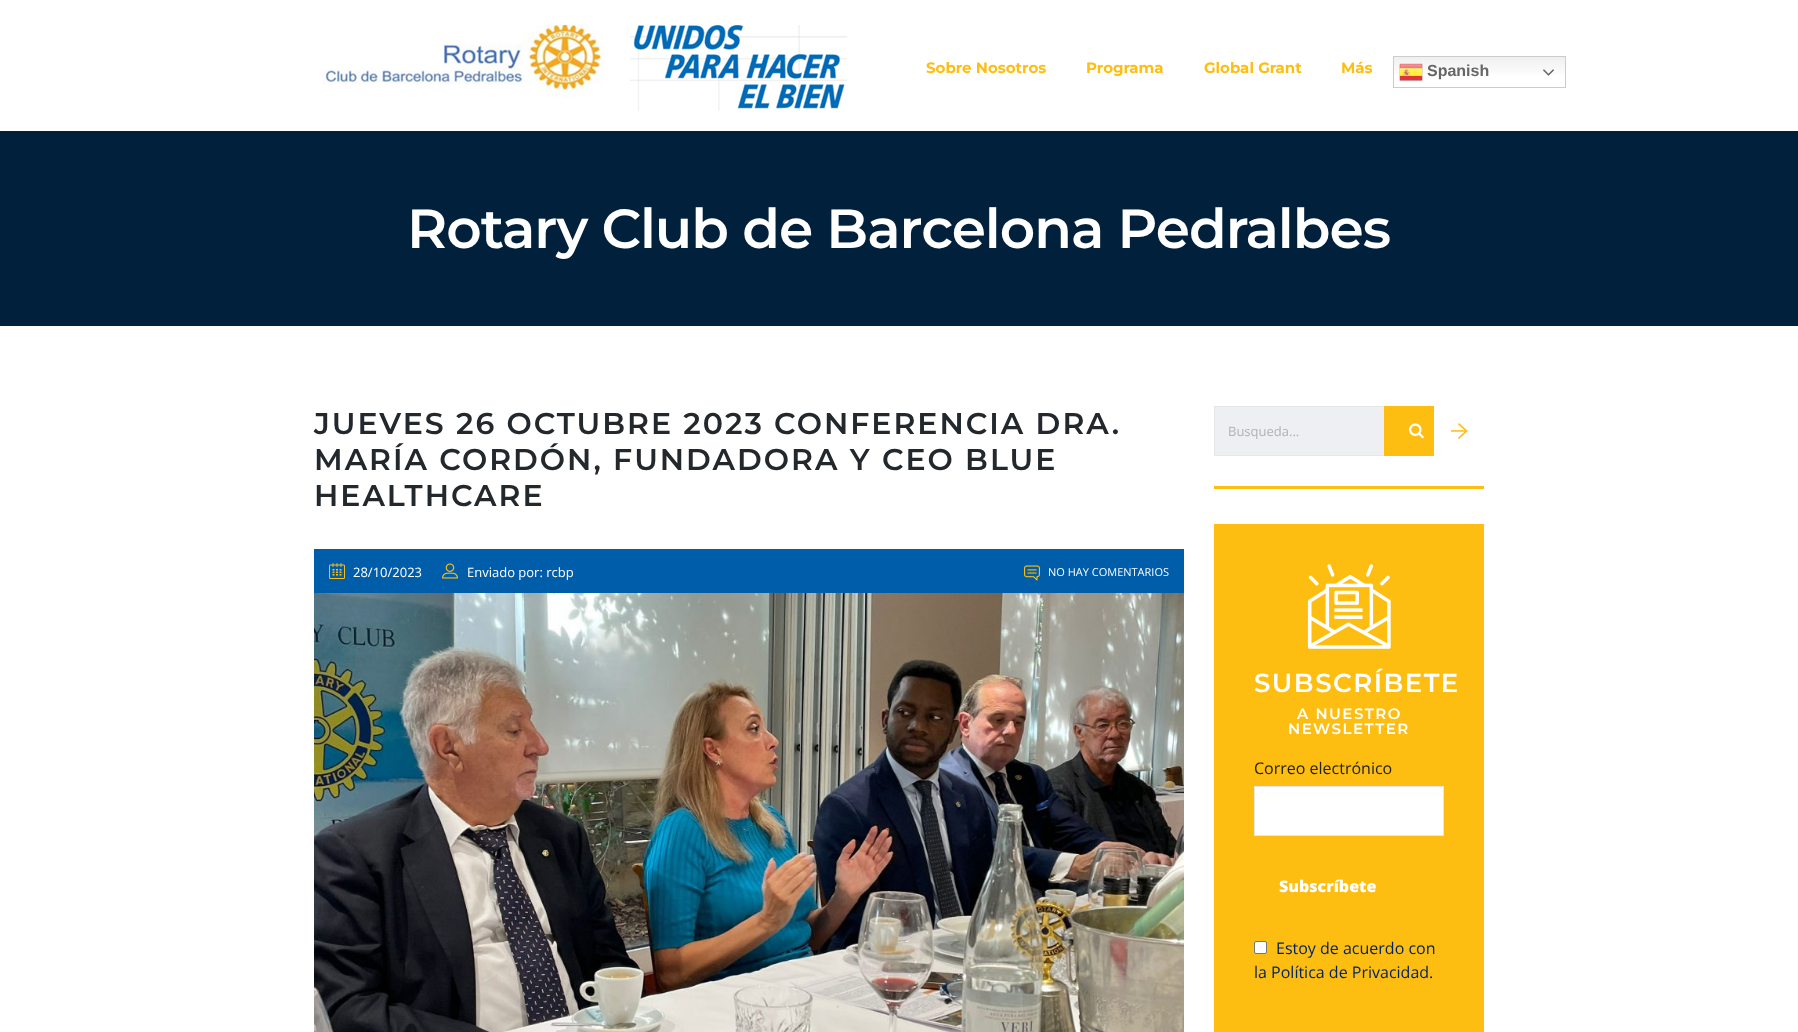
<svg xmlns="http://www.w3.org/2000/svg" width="1798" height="1032">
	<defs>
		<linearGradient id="g1" gradientUnits="userSpaceOnUse" x1="1480" y1="56" x2="1480" y2="88"><stop offset="0" stop-color="#EFEFEF" /><stop offset="0.7" stop-color="#FFFFFF" /></linearGradient>
	</defs>
	<rect width="100%" height="100%" fill="#FFFFFF" />
	<image x="322" y="25" width="525" height="86" href="assets/img1.png" />
	<g font-family="Montserrat" font-size="15" font-weight="700" fill="#FEBD11">
		<text x="926" y="73">Sobre Nosotros</text>
		<text x="1086" y="73">Programa</text>
		<text x="1204" y="73">Global Grant</text>
		<text x="1341" y="73">Más</text>
	</g>
	<rect x="1394" y="57" width="171" height="18" fill="url(#g1)" />
	<rect x="1393.5" y="56.5" width="172" height="31" fill="none" stroke="#CCCCCC" />
	<image x="1399" y="63" width="24" height="19" href="assets/img2.png" />
	<text x="1427" y="76" font-family="Liberation Sans" font-size="16" font-weight="700" fill="#666666">Spanish</text>
	<image x="1543" y="69" width="11" height="7" href="assets/img3.png" />
	<rect x="0" y="131" width="1798" height="195" fill="#00203B" />
	<text x="407" y="248" font-family="Montserrat" font-size="55" font-weight="600" letter-spacing="-1" fill="#FFFFFF">Rotary Club de Barcelona Pedralbes</text>
	<g font-family="Montserrat" font-size="30" font-weight="600" letter-spacing="2" fill="#23282D">
		<text x="314" y="434">JUEVES 26 OCTUBRE 2023 CONFERENCIA DRA.</text>
		<text x="314" y="470">MARÍA CORDÓN, FUNDADORA Y CEO BLUE</text>
		<text x="314" y="506">HEALTHCARE</text>
	</g>
	<rect x="314" y="549" width="870" height="44" fill="#005DAA" />
	<image x="329" y="563" width="16" height="16" href="assets/img4.png" />
	<text x="353" y="577" font-family="Open Sans" font-size="13" fill="#FFFFFF">28/10/2023</text>
	<image x="442" y="563" width="16" height="16" href="assets/img5.png" />
	<text x="467" y="577" font-family="Open Sans" font-size="13" fill="#FFFFFF">Enviado por: rcbp</text>
	<image x="1024" y="565" width="16" height="16" href="assets/img6.png" />
	<text x="1048" y="576" font-family="Open Sans" font-size="11" fill="#FFFFFF">NO HAY COMENTARIOS</text>
	<image x="314" y="593" width="870" height="439" href="assets/img7.png" />
	<rect x="1214" y="486" width="270" height="3" fill="#FEBD11" />
	<rect x="1215" y="407" width="169" height="48" fill="#EEEFF2" />
	<rect x="1214.5" y="406.5" width="269" height="49" fill="none" stroke="#E6E6E6" />
	<text x="1228" y="436" font-family="Open Sans" font-size="13" fill="#B2B2B2">Busqueda...</text>
	<rect x="1384" y="406" width="50" height="50" fill="#FEBD11" />
	<image x="1409" y="423" width="15" height="16" href="assets/img8.png" />
	<rect x="1434" y="406" width="50" height="50" fill="#FFFFFF" />
	<image x="1451" y="423" width="17" height="16" href="assets/img9.png" />
	<rect x="1214" y="524" width="270" height="508" fill="#FEBD11" />
	<image x="1307" y="564" width="84" height="85" href="assets/img10.png" />
	<text x="1254" y="692" font-family="Montserrat" font-size="26" font-weight="600" letter-spacing="1.5" fill="#FFFFFF">SUBSCRÍBETE</text>
	<g font-family="Montserrat" font-size="15" font-weight="600" letter-spacing="1.5" fill="#FFFFFF">
		<text x="1297" y="719">A NUESTRO</text>
		<text x="1288" y="734">NEWSLETTER</text>
	</g>
	<text x="1254" y="774" font-family="Open Sans" font-size="16" fill="#222222">Correo electrónico</text>
	<rect x="1254.5" y="786.5" width="189" height="49" fill="#FFFFFF" stroke="#E6E6E6" />
	<text x="1279" y="892" font-family="Open Sans" font-size="16" font-weight="800" fill="#FFFFFF">Subscríbete</text>
	<rect x="1254.5" y="941.5" width="12" height="12" rx="1.5" fill="#FFFFFF" stroke="#767676" />
	<g font-family="Open Sans" font-size="16" fill="#00246C">
		<text x="1276" y="954">Estoy de acuerdo con</text>
		<text x="1254" y="978">la Política de Privacidad.</text>
	</g>
</svg>
